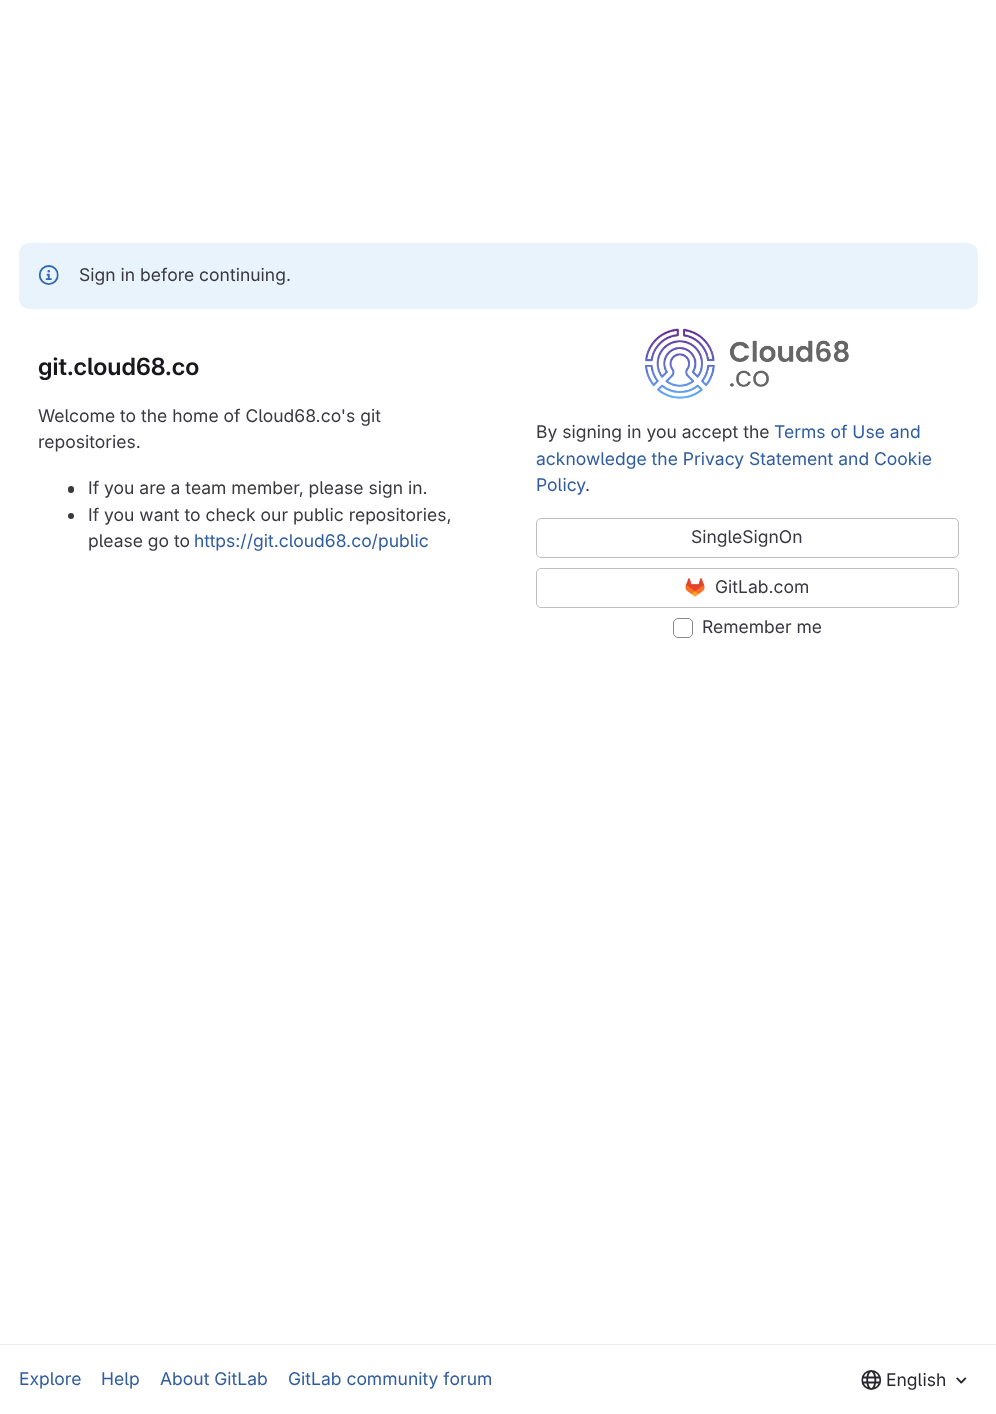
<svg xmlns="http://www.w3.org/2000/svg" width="996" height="1414">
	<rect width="100%" height="100%" fill="#FFFFFF" />
	<rect x="19" y="243" width="959" height="66" rx="10" fill="#E9F3FC" />
	<image x="38" y="265" width="21" height="20" href="assets/img1.png" />
	<text x="79" y="281" font-family="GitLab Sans" font-size="17.5" fill="#3A383F">Sign in before continuing.</text>
	<text x="38" y="375" font-family="GitLab Sans" font-size="23.75" font-weight="600" fill="#18171D">git.cloud68.co</text>
	<g font-family="GitLab Sans" font-size="17.5" fill="#3A383F">
		<text x="38" y="422">Welcome to the home of Cloud68.co's git</text>
		<text x="38" y="448">repositories.</text>
	</g>
	<rect x="68" y="486" width="6" height="7" rx="3" fill="#3A383F" />
	<text x="88" y="494" font-family="GitLab Sans" font-size="17.5" fill="#3A383F">If you are a team member, please sign in.</text>
	<circle cx="71" cy="516" r="3" fill="#3A383F" />
	<g font-family="GitLab Sans" font-size="17.5" fill="#3A383F">
		<text x="88" y="521">If you want to check our public repositories,</text>
		<text x="88" y="547">please go to</text>
	</g>
	<text x="194" y="547" font-family="GitLab Sans" font-size="17.5" fill="#2F5CA0">https://git.cloud68.co/public</text>
	<image x="645" y="328" width="204" height="71" href="assets/img2.png" />
	<text x="536" y="438" font-family="GitLab Sans" font-size="17.5" fill="#3A383F">By signing in you accept the</text>
	<g font-family="GitLab Sans" font-size="17.5" fill="#2F5CA0">
		<text x="774" y="438">Terms of Use and</text>
		<text x="536" y="465">acknowledge the Privacy Statement and Cookie</text>
		<text x="536" y="491">Policy</text>
	</g>
	<text x="585" y="491" font-family="GitLab Sans" font-size="17.5" fill="#3A383F">.</text>
	<rect x="536.5" y="518.5" width="422" height="39" rx="4.5" fill="none" stroke="#BFBFC3" />
	<text x="691" y="543" font-family="GitLab Sans" font-size="17.5" fill="#3A383F">SingleSignOn</text>
	<rect x="536.5" y="568.5" width="422" height="39" rx="4.5" fill="none" stroke="#BFBFC3" />
	<image x="685" y="578" width="20" height="19" href="assets/img3.png" />
	<text x="715" y="593" font-family="GitLab Sans" font-size="17.5" fill="#3A383F">GitLab.com</text>
	<rect x="673.5" y="618.5" width="19" height="19" rx="4.5" fill="none" stroke="#89888D" />
	<text x="702" y="633" font-family="GitLab Sans" font-size="17.5" fill="#3A383F">Remember me</text>
	<rect x="0" y="1344" width="996" height="1" fill="#ECECEF" />
	<g font-family="GitLab Sans" font-size="17.5" fill="#2F5CA0">
		<text x="19" y="1385">Explore</text>
		<text x="101" y="1385">Help</text>
		<text x="160" y="1385">About GitLab</text>
		<text x="288" y="1385">GitLab community forum</text>
	</g>
	<image x="861" y="1370" width="21" height="20" href="assets/img4.png" />
	<text x="886" y="1386" font-family="GitLab Sans" font-size="17.5" fill="#28272D">English</text>
	<image x="956" y="1377" width="11" height="7" href="assets/img5.png" />
</svg>
